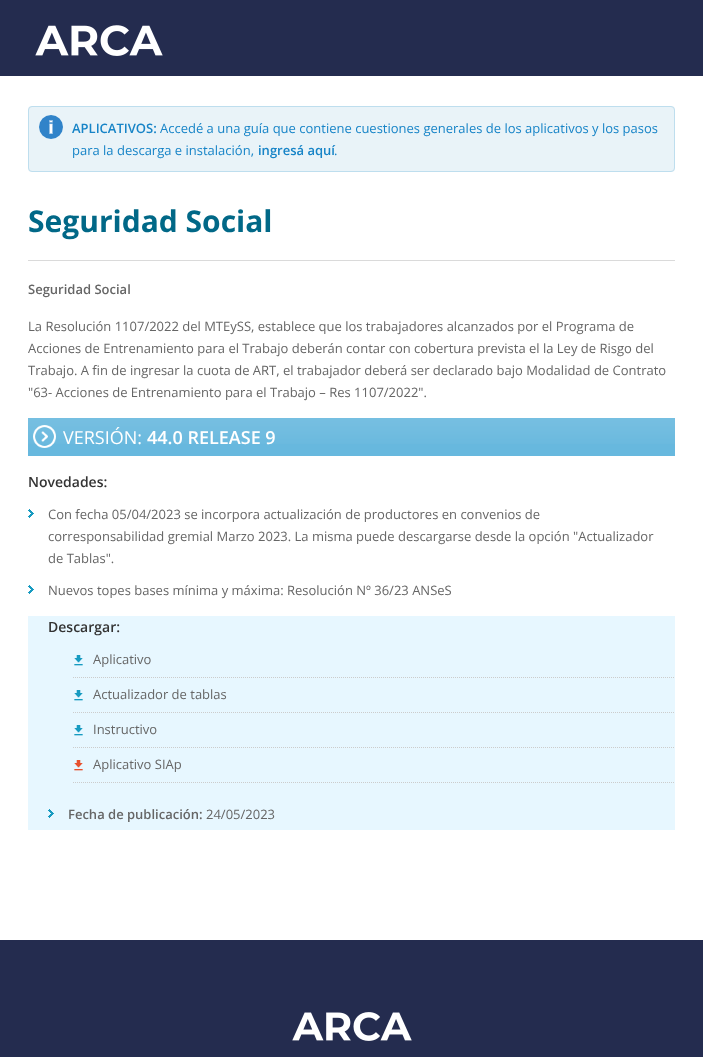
<svg xmlns="http://www.w3.org/2000/svg" width="703" height="1057">
	<rect width="100%" height="100%" fill="#FFFFFF" />
	<rect x="0" y="0" width="703" height="76" fill="#242C4F" />
	<image x="35" y="25" width="128" height="31" href="assets/img1.png" />
	<rect x="28" y="106" width="647" height="66" rx="4" fill="#E9F3F8" />
	<image x="39" y="115" width="24" height="24" href="assets/img2.png" />
	<rect x="28.5" y="106.5" width="646" height="65" rx="3.5" fill="none" stroke="#BEDEEE" />
	<text x="72" y="133" font-family="Open Sans" font-size="13" font-weight="600" fill="#1784C7">APLICATIVOS:</text>
	<g font-family="Open Sans" font-size="13" fill="#1784C7">
		<text x="160" y="133">Accedé a una guía que contiene cuestiones generales de los aplicativos y los pasos</text>
		<text x="72" y="155">para la descarga e instalación,</text>
	</g>
	<text x="258" y="155" font-family="Open Sans" font-size="13" font-weight="600" fill="#1784C7">ingresá aquí</text>
	<text x="334" y="155" font-family="Open Sans" font-size="13" fill="#1784C7">.</text>
	<text x="28" y="232" font-family="Open Sans" font-size="30" font-weight="700" fill="#016887">Seguridad Social</text>
	<rect x="28" y="260" width="647" height="1" fill="#DADADA" />
	<text x="28" y="294" font-family="Open Sans" font-size="13" font-weight="600" fill="#666666">Seguridad Social</text>
	<g font-family="Open Sans" font-size="13" fill="#666666">
		<text x="28" y="331">La Resolución 1107/2022 del MTEySS, establece que los trabajadores alcanzados por el Programa de</text>
		<text x="28" y="353">Acciones de Entrenamiento para el Trabajo deberán contar con cobertura prevista el la Ley de Risgo del</text>
		<text x="28" y="375">Trabajo. A fin de ingresar la cuota de ART, el trabajador deberá ser declarado bajo Modalidad de Contrato</text>
		<text x="28" y="397">"63- Acciones de Entrenamiento para el Trabajo – Res 1107/2022".</text>
	</g>
	<rect x="28" y="418" width="647" height="38" fill="#67B8DE" />
	<image x="28" y="418" width="647" height="26" href="assets/img3.png" />
	<image x="33" y="425" width="23" height="23" href="assets/img4.png" />
	<text x="63" y="444" font-family="Open Sans" font-size="18" fill="#FFFFFF">VERSIÓN:</text>
	<text x="147" y="444" font-family="Open Sans" font-size="18" font-weight="600" fill="#FFFFFF">44.0 RELEASE 9</text>
	<text x="28" y="487" font-family="Open Sans" font-size="14" font-weight="600" fill="#333333">Novedades:</text>
	<image x="28" y="509" width="6" height="9" href="assets/img5.png" />
	<g font-family="Open Sans" font-size="13" fill="#666666">
		<text x="48" y="519">Con fecha 05/04/2023 se incorpora actualización de productores en convenios de</text>
		<text x="48" y="541">corresponsabilidad gremial Marzo 2023. La misma puede descargarse desde la opción "Actualizador</text>
		<text x="48" y="563">de Tablas".</text>
	</g>
	<image x="28" y="585" width="6" height="9" href="assets/img5.png" />
	<text x="48" y="595" font-family="Open Sans" font-size="13" fill="#666666">Nuevos topes bases mínima y máxima: Resolución Nº 36/23 ANSeS</text>
	<rect x="28" y="616" width="647" height="214" fill="#E7F7FF" />
	<text x="48" y="632" font-family="Open Sans" font-size="14" font-weight="600" fill="#333333">Descargar:</text>
	<path d="M73 677.5H675" fill="none" stroke="#CCCCCC" stroke-dasharray="1 1" />
	<image x="74" y="655" width="9" height="11" href="assets/img6.png" />
	<text x="93" y="664" font-family="Open Sans" font-size="13" fill="#666666">Aplicativo</text>
	<path d="M73 712.5H675" fill="none" stroke="#CCCCCC" stroke-dasharray="1 1" />
	<image x="74" y="690" width="9" height="11" href="assets/img6.png" />
	<text x="93" y="699" font-family="Open Sans" font-size="13" fill="#666666">Actualizador de tablas</text>
	<path d="M73 747.5H675" fill="none" stroke="#CCCCCC" stroke-dasharray="1 1" />
	<image x="74" y="725" width="9" height="11" href="assets/img6.png" />
	<text x="93" y="734" font-family="Open Sans" font-size="13" fill="#666666">Instructivo</text>
	<path d="M73 782.5H675" fill="none" stroke="#CCCCCC" stroke-dasharray="1 1" />
	<image x="74" y="760" width="9" height="11" href="assets/img7.png" />
	<text x="93" y="769" font-family="Open Sans" font-size="13" fill="#666666">Aplicativo SIAp</text>
	<image x="48" y="809" width="6" height="9" href="assets/img8.png" />
	<text x="68" y="819" font-family="Open Sans" font-size="13" font-weight="600" fill="#666666">Fecha de publicación:</text>
	<text x="206" y="819" font-family="Open Sans" font-size="13" fill="#666666">24/05/2023</text>
	<rect x="0" y="940" width="703" height="117" fill="#242C4F" />
	<image x="292" y="1012" width="120" height="29" href="assets/img9.png" />
</svg>
